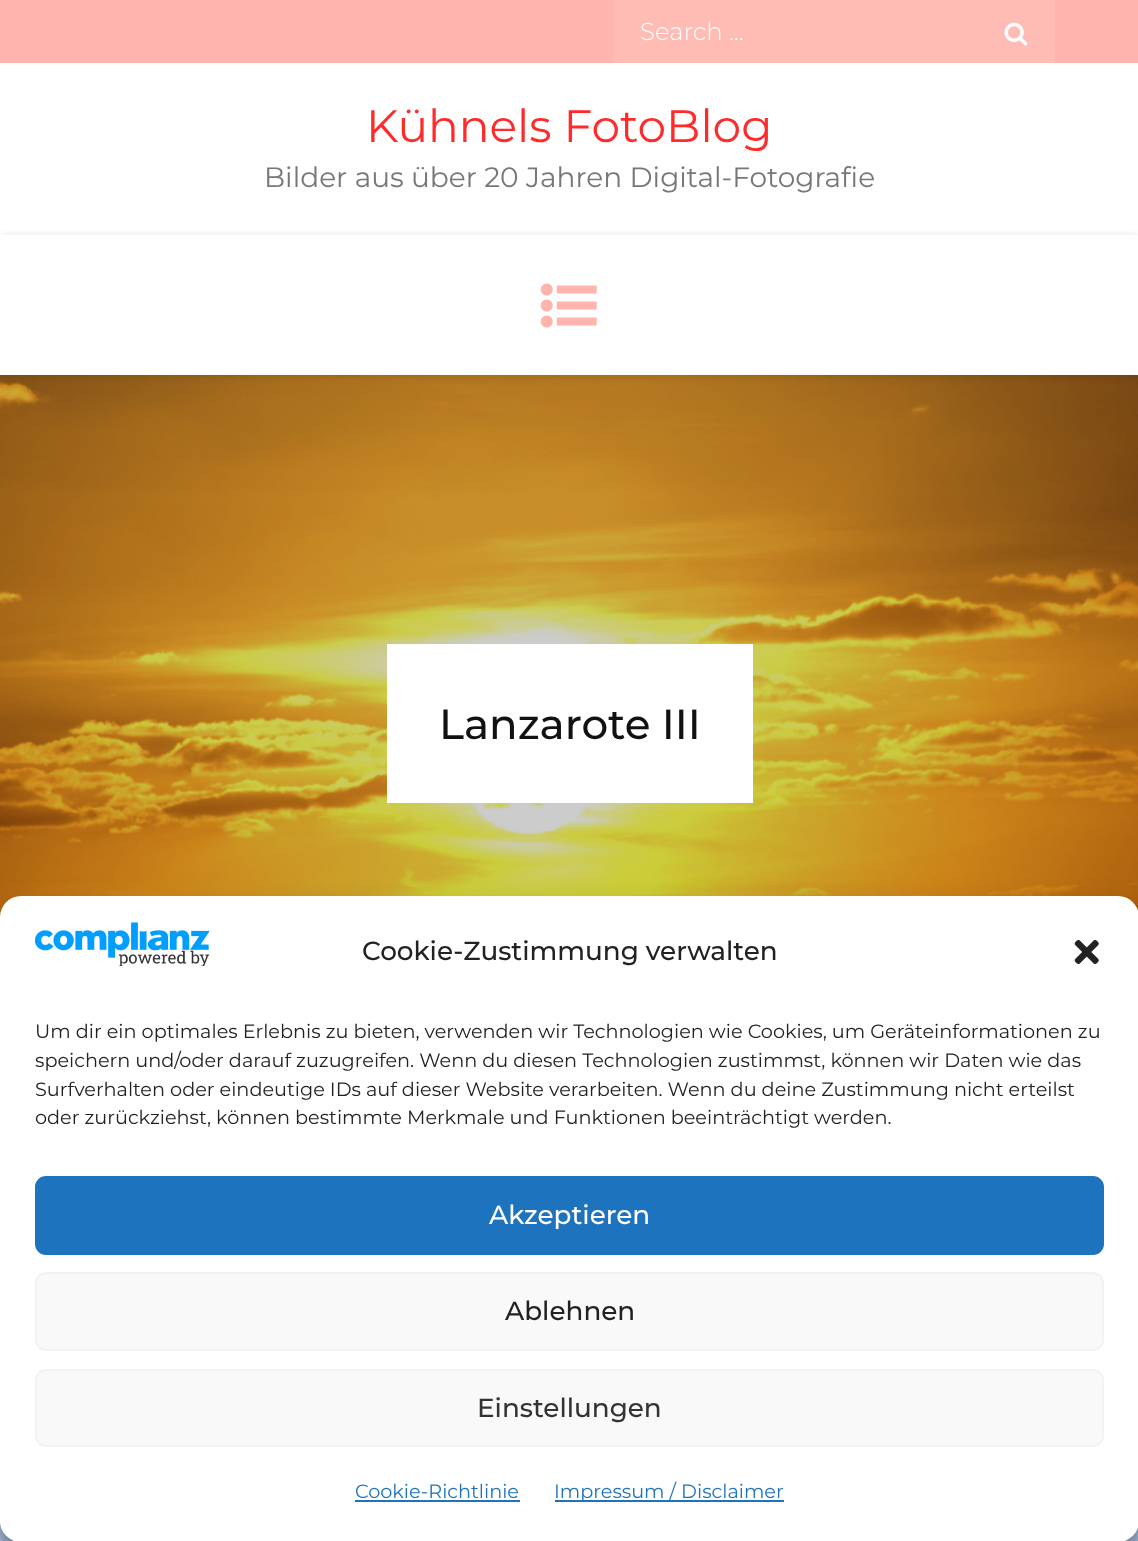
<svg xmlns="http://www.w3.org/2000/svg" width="1138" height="1541">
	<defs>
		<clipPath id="clip1"><path d="M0 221H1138V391H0ZM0 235H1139V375H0Z" clip-rule="evenodd" /></clipPath>
	</defs>
	<rect width="100%" height="100%" fill="#ACC4E5" />
	<rect x="0" y="0" width="1138" height="63" fill="#FFB5AD" />
	<rect x="613" y="0" width="442" height="63" fill="#FFBCB5" />
	<text x="640" y="40" font-family="Montserrat" font-size="24.5" font-weight="300" fill="#FFFFFF">Search ...</text>
	<image x="1004" y="22" width="24" height="24" href="assets/img1.png" />
	<rect x="0" y="63" width="1138" height="312" fill="#FFFFFF" />
	<text x="366" y="142" font-family="Montserrat" font-size="45.5" fill="#FF2B2B">Kühnels FotoBlog</text>
	<text x="264" y="187" font-family="Montserrat" font-size="28" fill="#777777">Bilder aus über 20 Jahren Digital-Fotografie</text>
	<image x="0" y="375" width="1138" height="542" href="assets/img3.png" />
	<g clip-path="url(#clip1)">
		<rect x="0" y="236" width="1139" height="140" fill="#000000" fill-opacity="0.11" filter="blur(4.5px)" />
	</g>
	<image x="540" y="283" width="57" height="45" href="assets/img2.png" />
	<rect x="387" y="644" width="366" height="159" fill="#FFFFFF" />
	<text x="439" y="739" font-family="Montserrat" font-size="42" font-weight="500" fill="#111111">Lanzarote III</text>
	<rect x="0" y="907" width="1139" height="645" rx="21" fill="#000000" fill-opacity="0.23" filter="blur(5px)" />
	<rect x="0" y="914" width="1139" height="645" rx="21" fill="#000000" fill-opacity="0.19" filter="blur(17.5px)" />
	<rect x="0" y="896" width="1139" height="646" rx="21" fill="#FFFFFF" />
	<image x="35" y="922" width="175" height="44" href="assets/img4.png" />
	<text x="362" y="960" font-family="Montserrat" font-size="26.25" font-weight="500" fill="#222222">Cookie-Zustimmung verwalten</text>
	<image x="1074" y="940" width="25" height="24" href="assets/img5.png" />
	<g font-family="Montserrat" font-size="19.25" fill="#222222">
		<text x="35" y="1038">Um dir ein optimales Erlebnis zu bieten, verwenden wir Technologien wie Cookies, um Geräteinformationen zu</text>
		<text x="35" y="1067">speichern und/oder darauf zuzugreifen. Wenn du diesen Technologien zustimmst, können wir Daten wie das</text>
		<text x="35" y="1096">Surfverhalten oder eindeutige IDs auf dieser Website verarbeiten. Wenn du deine Zustimmung nicht erteilst</text>
		<text x="35" y="1124">oder zurückziehst, können bestimmte Merkmale und Funktionen beeinträchtigt werden.</text>
	</g>
	<rect x="36" y="1177" width="1067" height="77" rx="10" fill="#1E73BE" stroke="#1E73BE" stroke-width="2" />
	<text x="489" y="1224" font-family="Montserrat" font-size="26.25" font-weight="500" fill="#FFFFFF">Akzeptieren</text>
	<rect x="36" y="1273" width="1067" height="77" rx="10" fill="#F9F9F9" stroke="#F2F2F2" stroke-width="2" />
	<text x="505" y="1320" font-family="Montserrat" font-size="26.25" font-weight="500" fill="#222222">Ablehnen</text>
	<rect x="36" y="1370" width="1067" height="76" rx="10" fill="#F9F9F9" stroke="#F2F2F2" stroke-width="2" />
	<text x="477" y="1417" font-family="Montserrat" font-size="26.25" font-weight="500" fill="#333333">Einstellungen</text>
	<text x="355" y="1498" font-family="Montserrat" font-size="19.25" fill="#1E73BE">Cookie-Richtlinie</text>
	<rect x="355" y="1500" width="165" height="2" fill="#1E73BE" />
	<rect x="555" y="1500" width="229" height="2" fill="#1E73BE" />
	<text x="554" y="1498" font-family="Montserrat" font-size="19.25" fill="#1E73BE">Impressum / Disclaimer</text>
</svg>
